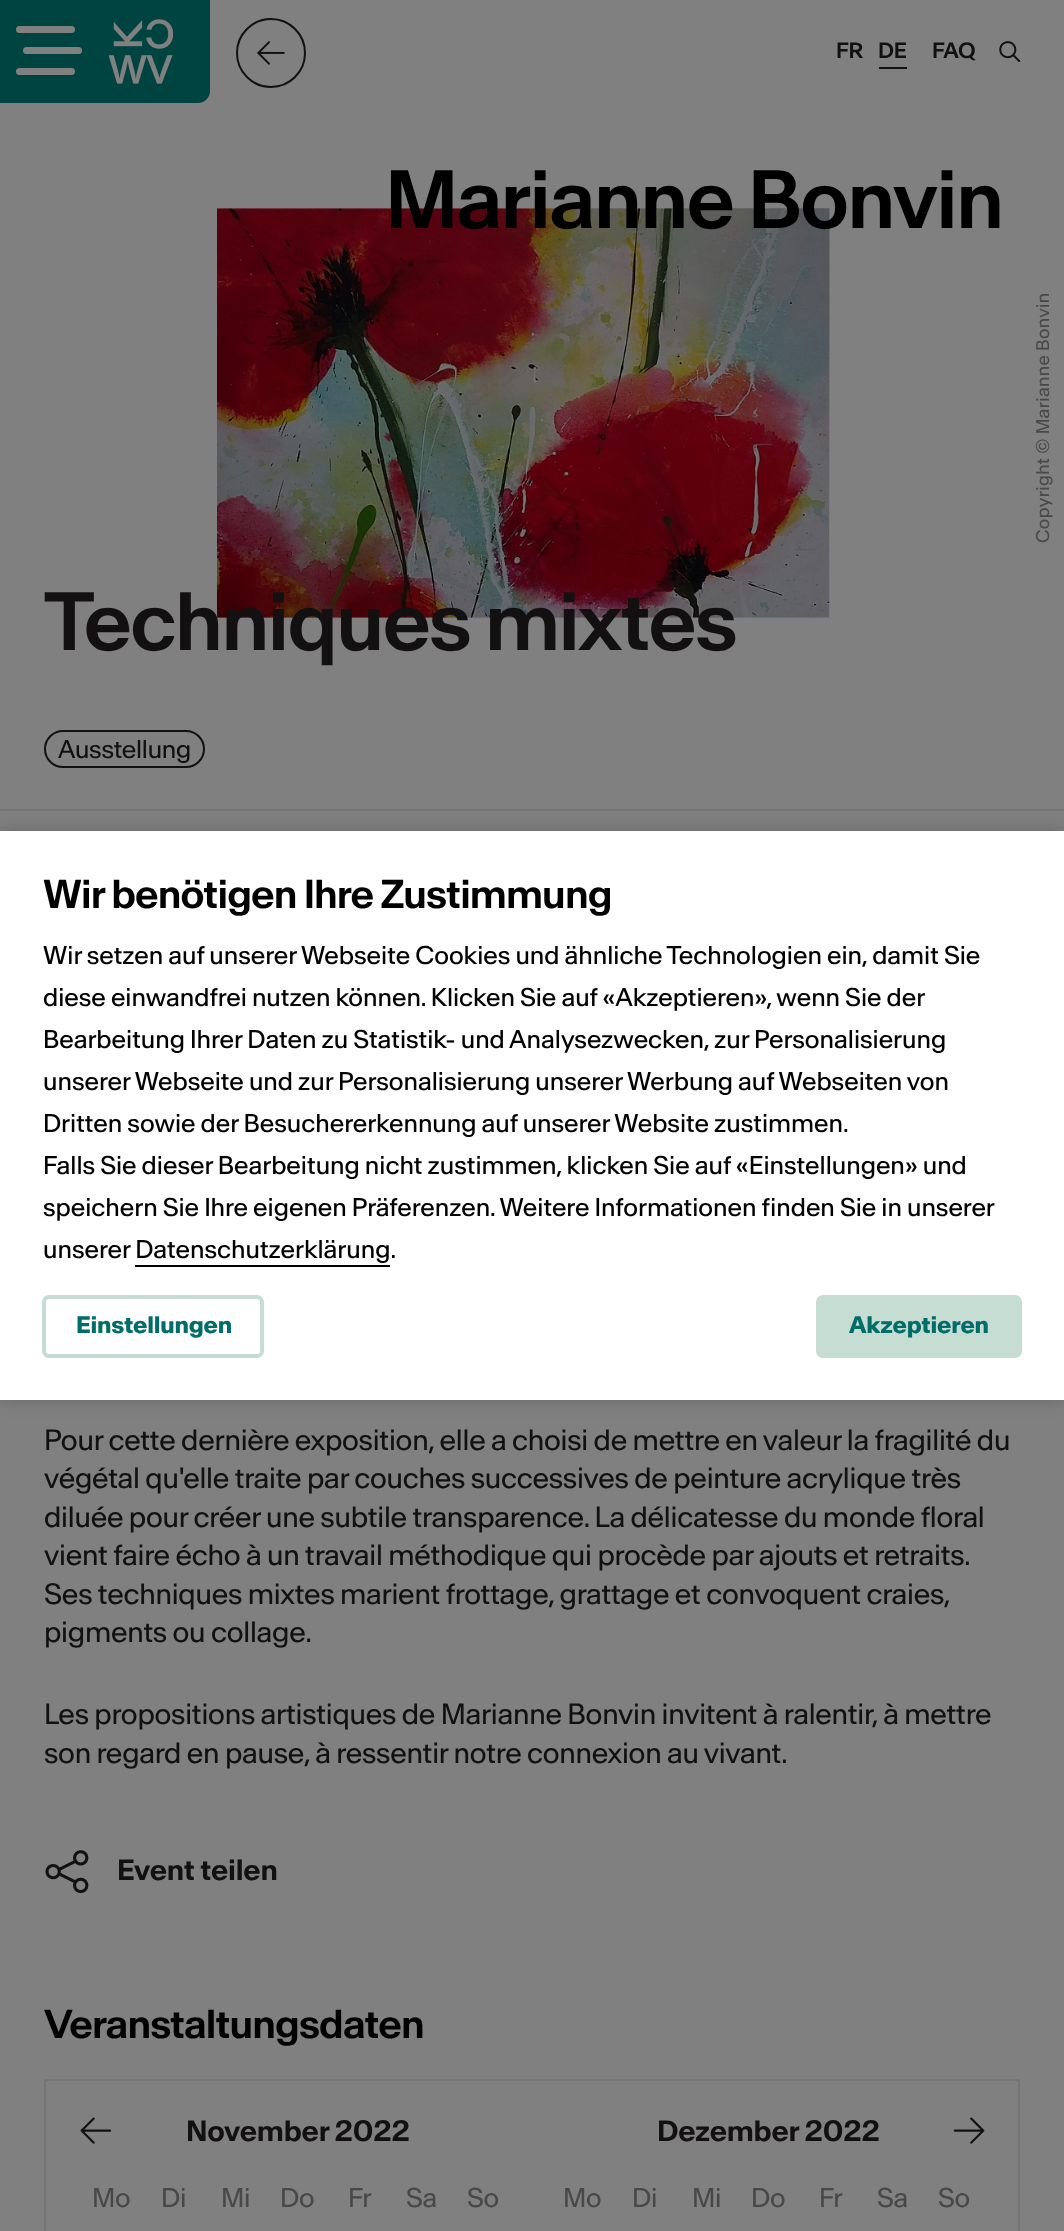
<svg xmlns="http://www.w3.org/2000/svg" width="1064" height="2231">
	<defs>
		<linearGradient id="g1" gradientUnits="userSpaceOnUse" x1="268" y1="669" x2="779" y2="158"><stop offset="0" stop-color="#000000" stop-opacity="0.12" /><stop offset="0.3" stop-color="#000000" stop-opacity="0" /><stop offset="0.7" stop-color="#000000" stop-opacity="0" /><stop offset="1" stop-color="#000000" stop-opacity="0.12" /></linearGradient>
	</defs>
	<rect width="100%" height="100%" fill="#808080" />
	<path d="M0 0H210V91C210 97.5 204.5 103 198 103H0Z" fill="#004441" />
	<rect x="16" y="26" width="59" height="7" rx="3.5" fill="#808080" />
	<rect x="23" y="47" width="59" height="7" rx="3.5" fill="#808080" />
	<rect x="16" y="68" width="59" height="7" rx="3.5" fill="#808080" />
	<image x="109" y="19" width="64" height="65" href="assets/img1.png" />
	<text x="836" y="58" font-family="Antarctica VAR" font-size="21" font-weight="500" font-style="italic" letter-spacing="-0.2" fill="#121010">FR</text>
	<rect x="879" y="67" width="28" height="2" fill="#121010" />
	<g font-family="Antarctica VAR" font-size="21" font-weight="500" font-style="italic" letter-spacing="-0.2" fill="#121010">
		<text x="878" y="58">DE</text>
		<text x="932" y="58">FAQ</text>
	</g>
	<image x="999" y="41" width="22" height="22" href="assets/img2.png" />
	<image x="217" y="208" width="613" height="410" href="assets/img3.png" />
	<text x="385" y="228" font-family="Antarctica VAR" font-size="78.75" font-weight="500" font-style="italic" letter-spacing="-1.6" fill="#000000">Marianne Bonvin</text>
	<rect x="217" y="208" width="613" height="410" fill="url(#g1)" />
	<text x="1049" y="543" transform="rotate(-90 1049 543)" font-family="Antarctica VAR" font-size="17.5" font-style="italic" letter-spacing="0.35" fill="#494848">Copyright © Marianne Bonvin</text>
	<text x="44" y="650" font-family="Antarctica VAR" font-size="78.75" font-weight="500" font-style="italic" letter-spacing="-1.6" fill="#121010">Techniques mixtes</text>
	<circle cx="271" cy="53" r="34" fill="none" stroke="#121010" stroke-width="2" />
	<image x="257" y="41" width="28" height="24" href="assets/img4.png" />
	<rect x="45" y="731" width="159" height="36" rx="18" fill="none" stroke="#121010" stroke-width="2" />
	<text x="58" y="758" font-family="Antarctica VAR" font-size="24.5" font-style="italic" letter-spacing="-0.2" fill="#121010">Ausstellung</text>
	<rect x="0" y="809" width="1064" height="2" fill="#757575" />
	<g font-family="Antarctica VAR" font-size="28" font-style="italic" letter-spacing="-0.2" fill="#121010">
		<text x="44" y="1450">Pour cette dernière exposition, elle a choisi de mettre en valeur la fragilité du</text>
		<text x="44" y="1488">végétal qu'elle traite par couches successives de peinture acrylique très</text>
		<text x="44" y="1527">diluée pour créer une subtile transparence. La délicatesse du monde floral</text>
		<text x="44" y="1565">vient faire écho à un travail méthodique qui procède par ajouts et retraits.</text>
		<text x="44" y="1604">Ses techniques mixtes marient frottage, grattage et convoquent craies,</text>
		<text x="44" y="1642">pigments ou collage.</text>
		<text x="44" y="1724">Les propositions artistiques de Marianne Bonvin invitent à ralentir, à mettre</text>
		<text x="44" y="1763">son regard en pause, à ressentir notre connexion au vivant.</text>
	</g>
	<image x="45" y="1850" width="44" height="44" href="assets/img5.png" />
	<text x="117" y="1880" font-family="'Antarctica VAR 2'" font-size="28" font-weight="600" font-style="italic" letter-spacing="-0.2" fill="#121010">Event teilen</text>
	<text x="44" y="2038" font-family="Antarctica VAR" font-size="38.5" font-weight="600" font-style="italic" letter-spacing="-0.85" fill="#000000">Veranstaltungsdaten</text>
	<rect x="45" y="2080" width="974" height="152" fill="none" stroke="#757575" stroke-width="2" />
	<image x="80" y="2117" width="32" height="27" href="assets/img6.png" />
	<image x="953" y="2117" width="32" height="27" href="assets/img7.png" />
	<text x="186" y="2141" font-family="'Antarctica VAR 2'" font-size="28" font-weight="600" font-style="italic" letter-spacing="-0.2" fill="#121010">November 2022</text>
	<g font-family="Antarctica VAR" font-size="26" font-style="italic" letter-spacing="-0.2" fill="#494848">
		<text x="92" y="2207">Mo</text>
		<text x="161" y="2207">Di</text>
		<text x="221" y="2207">Mi</text>
		<text x="280" y="2207">Do</text>
		<text x="348" y="2207">Fr</text>
		<text x="406" y="2207">Sa</text>
		<text x="467" y="2207">So</text>
	</g>
	<text x="657" y="2141" font-family="'Antarctica VAR 2'" font-size="28" font-weight="600" font-style="italic" letter-spacing="-0.2" fill="#121010">Dezember 2022</text>
	<g font-family="Antarctica VAR" font-size="26" font-style="italic" letter-spacing="-0.2" fill="#494848">
		<text x="563" y="2207">Mo</text>
		<text x="632" y="2207">Di</text>
		<text x="692" y="2207">Mi</text>
		<text x="751" y="2207">Do</text>
		<text x="819" y="2207">Fr</text>
		<text x="877" y="2207">Sa</text>
		<text x="938" y="2207">So</text>
	</g>
	<rect x="0" y="831" width="1064" height="569" fill="#000000" fill-opacity="0.2" filter="blur(9px)" />
	<rect x="0" y="831" width="1064" height="569" fill="#FFFFFF" />
	<text x="43" y="908" font-family="Antarctica VAR" font-size="38.5" font-weight="600" font-style="italic" letter-spacing="-0.85" fill="#000000">Wir benötigen Ihre Zustimmung</text>
	<g font-family="'Antarctica VAR 2'" font-size="24.5" font-style="italic" fill="#000000">
		<text x="43" y="964">Wir setzen auf unserer Webseite Cookies und ähnliche Technologien ein, damit Sie</text>
		<text x="43" y="1006">diese einwandfrei nutzen können. Klicken Sie auf «Akzeptieren», wenn Sie der</text>
		<text x="43" y="1048">Bearbeitung Ihrer Daten zu Statistik- und Analysezwecken, zur Personalisierung</text>
		<text x="43" y="1090">unserer Webseite und zur Personalisierung unserer Werbung auf Webseiten von</text>
		<text x="43" y="1132">Dritten sowie der Besuchererkennung auf unserer Website zustimmen.</text>
		<text x="43" y="1174">Falls Sie dieser Bearbeitung nicht zustimmen, klicken Sie auf «Einstellungen» und</text>
		<text x="43" y="1216">speichern Sie Ihre eigenen Präferenzen. Weitere Informationen finden Sie in unserer</text>
		<text x="43" y="1258">unserer Datenschutzerklärung.</text>
	</g>
	<rect x="135" y="1265" width="255" height="2" fill="#000000" />
	<rect x="44" y="1297" width="218" height="59" rx="5" fill="none" stroke="#C6DDD3" stroke-width="4" />
	<text x="76" y="1333" font-family="Antarctica VAR" font-size="22.75" font-weight="700" font-style="italic" letter-spacing="-0.2" fill="#006D68">Einstellungen</text>
	<rect x="818" y="1297" width="202" height="59" rx="5" fill="#C6DDD3" stroke="#C6DDD3" stroke-width="4" />
	<text x="849" y="1333" font-family="Antarctica VAR" font-size="22.75" font-weight="700" font-style="italic" letter-spacing="-0.2" fill="#006D68">Akzeptieren</text>
</svg>
